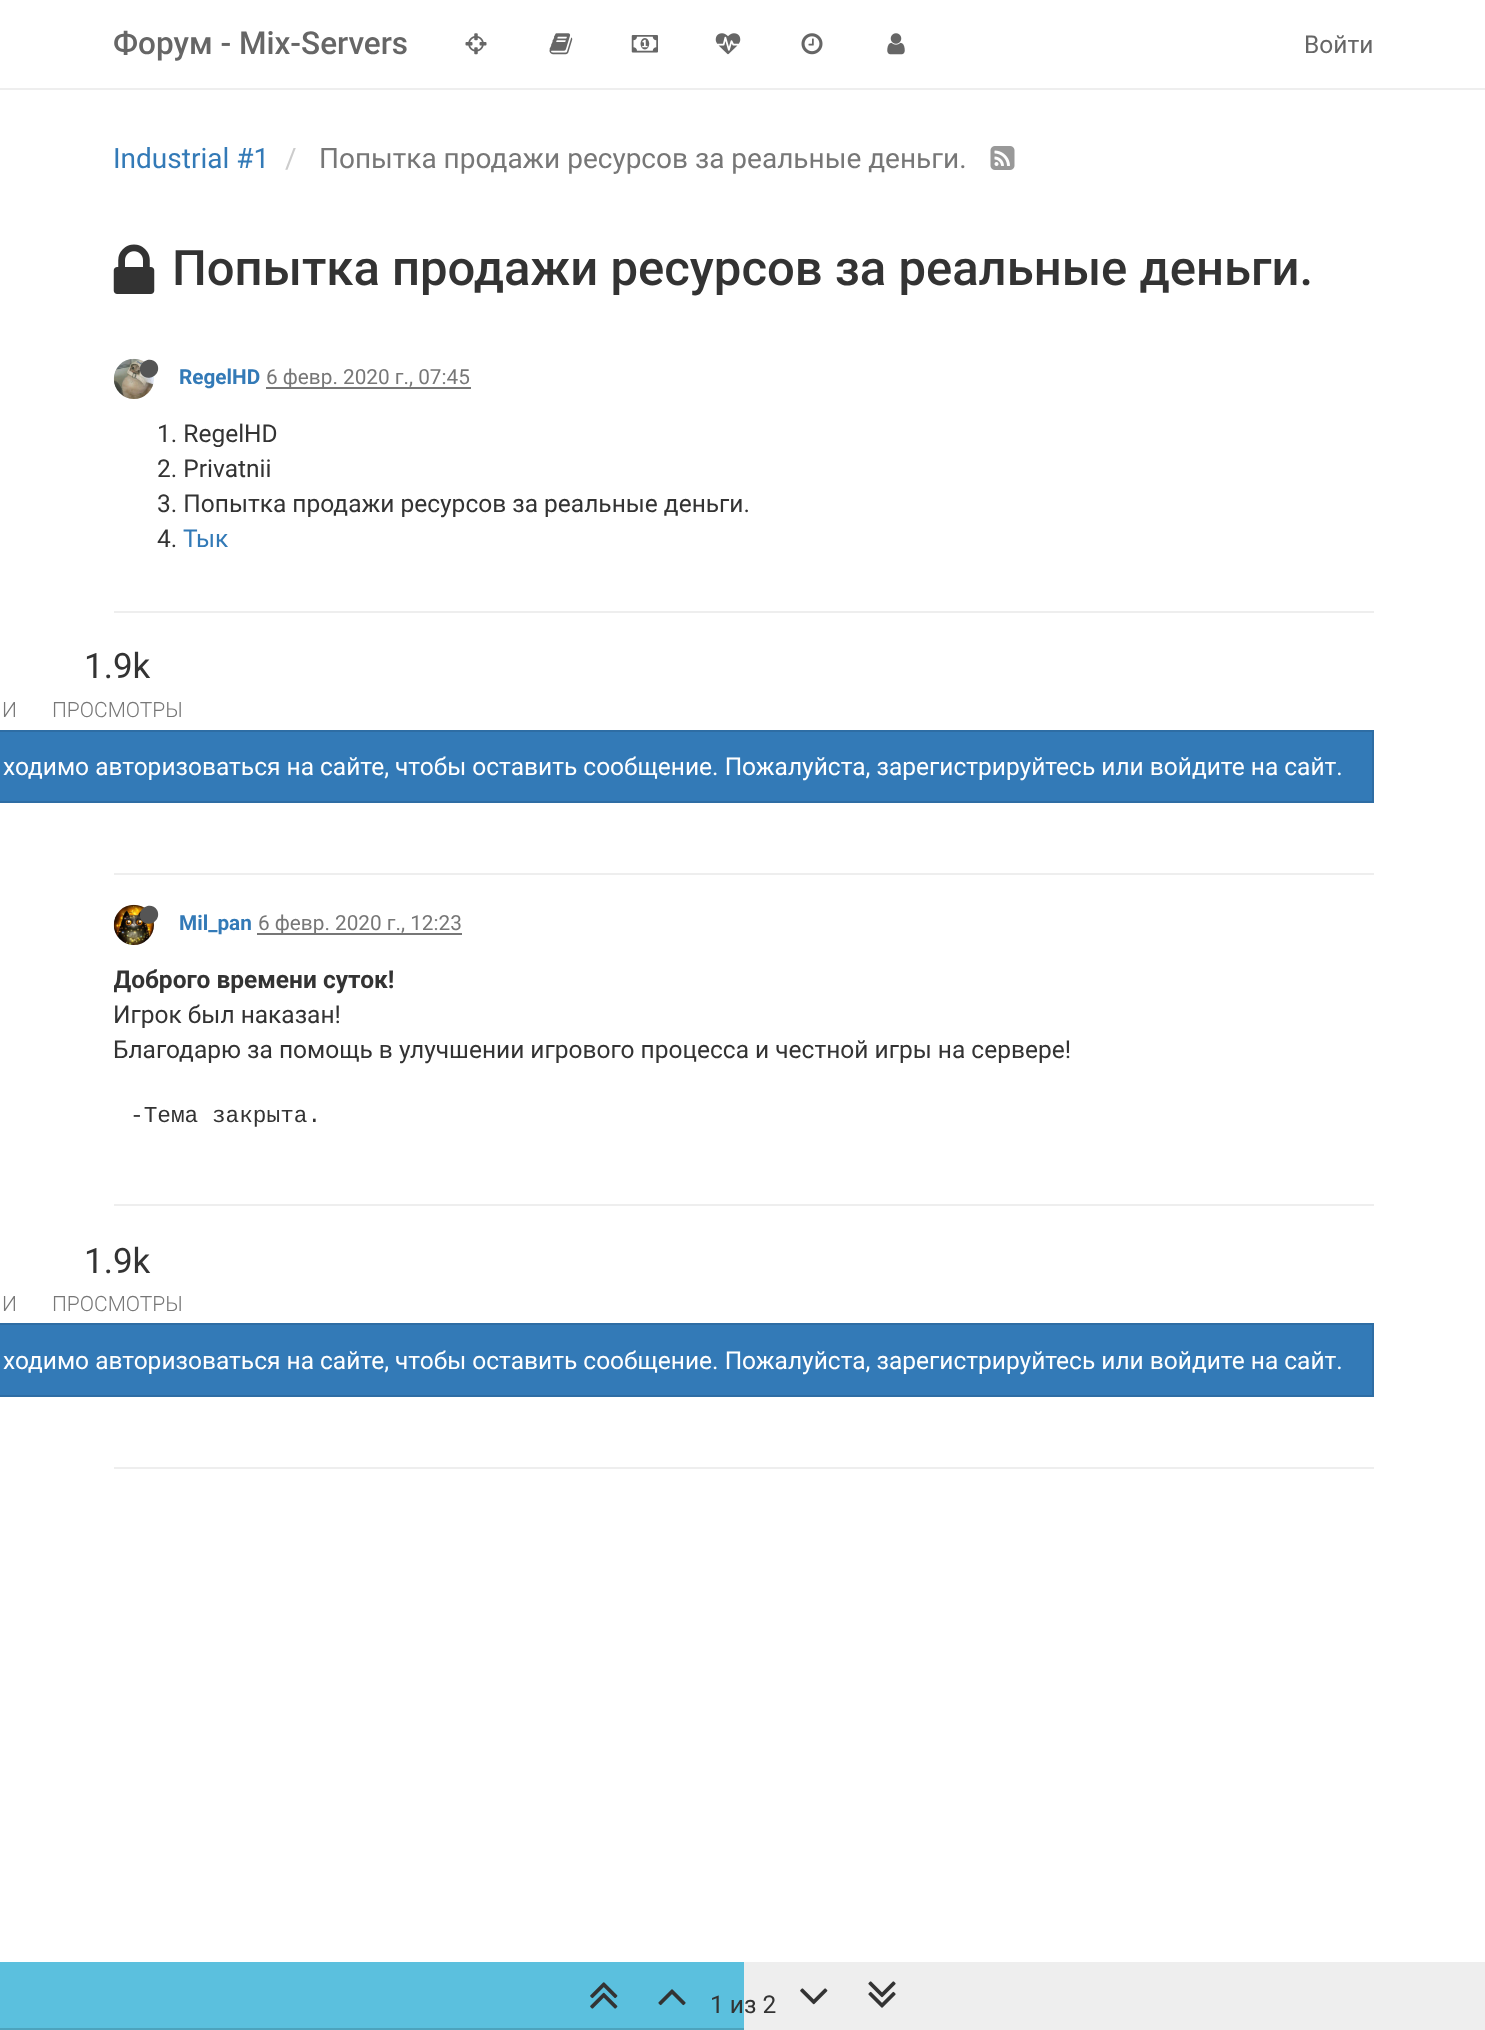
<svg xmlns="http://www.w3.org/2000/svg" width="1485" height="2030">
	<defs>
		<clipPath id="clip1"><rect x="114" y="963" width="1260" height="206" /></clipPath>
	</defs>
	<rect width="100%" height="100%" fill="#FFFFFF" />
	<rect x="0" y="88" width="1485" height="2" fill="#EEEEEE" />
	<text x="113" y="54" font-family="Roboto" font-size="31.5" font-weight="500" fill="#666666">Форум - Mix-Servers</text>
	<image x="465" y="33" width="22" height="22" href="assets/img1.png" />
	<image x="549" y="33" width="24" height="22" href="assets/img2.png" />
	<image x="631" y="35" width="27" height="18" href="assets/img3.png" />
	<image x="715" y="33" width="26" height="22" href="assets/img4.png" />
	<image x="801" y="33" width="22" height="22" href="assets/img5.png" />
	<image x="887" y="33" width="18" height="22" href="assets/img6.png" />
	<text x="1304" y="53" font-family="Roboto" font-size="24.5" fill="#666666">Войти</text>
	<text x="113" y="168" font-family="Roboto" font-size="28" fill="#337AB7">Industrial #1</text>
	<text x="285" y="168" font-family="Roboto" font-size="28" fill="#CCCCCC">/</text>
	<text x="319" y="168" font-family="Roboto" font-size="28" fill="#777777">Попытка продажи ресурсов за реальные деньги.</text>
	<image x="990" y="146" width="25" height="24" href="assets/img7.png" />
	<image x="113" y="244" width="42" height="50" href="assets/img8.png" />
	<text x="172" y="285" font-family="Roboto" font-size="49" font-weight="500" fill="#333333">Попытка продажи ресурсов за реальные деньги.</text>
	<image x="113" y="358" width="41" height="41" href="assets/img9.png" />
	<path d="M157 364C162.5 374.5 147 383.5 141 373.5C135.5 363 151 354 157 364Z" fill="#555555" />
	<text x="179" y="384" font-family="Roboto" font-size="20.75" font-weight="700" fill="#337AB7">RegelHD</text>
	<rect x="266" y="387" width="205" height="2" fill="#777777" />
	<text x="266" y="384" font-family="Roboto" font-size="20.75" fill="#777777">6 февр. 2020 г., 07:45</text>
	<g font-family="Roboto" font-size="24.5" fill="#333333">
		<text x="157" y="442">1. RegelHD</text>
		<text x="157" y="477">2. Privatnii</text>
		<text x="157" y="512">3. Попытка продажи ресурсов за реальные деньги.</text>
		<text x="157" y="547">4.</text>
	</g>
	<text x="183" y="547" font-family="Roboto" font-size="24.5" fill="#337AB7">Тык</text>
	<rect x="114" y="611" width="1260" height="2" fill="#EEEEEE" />
	<text x="2" y="717" font-family="Roboto" font-size="21" font-weight="300" fill="#777777">И</text>
	<text x="84" y="678" font-family="Roboto" font-size="35" fill="#333333">1.9k</text>
	<text x="52" y="717" font-family="Roboto" font-size="21" font-weight="300" fill="#777777">ПРОСМОТРЫ</text>
	<rect x="-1" y="731" width="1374" height="71" fill="#337AB7" stroke="#2E6DA4" stroke-width="2" />
	<text x="3" y="775" font-family="Roboto" font-size="24.5" fill="#FFFFFF">ходимо авторизоваться на сайте, чтобы оставить сообщение. Пожалуйста, зарегистрируйтесь или войдите на сайт.</text>
	<rect x="114" y="873" width="1260" height="2" fill="#EEEEEE" />
	<image x="113" y="904" width="41" height="41" href="assets/img10.png" />
	<path d="M157 910C162.5 920.5 147 929.5 141 919.5C135.5 909 151 900 157 910Z" fill="#555555" />
	<text x="179" y="930" font-family="Roboto" font-size="20.75" font-weight="700" fill="#337AB7">Mil_pan</text>
	<rect x="257" y="933" width="205" height="2" fill="#777777" />
	<text x="258" y="930" font-family="Roboto" font-size="20.75" fill="#777777">6 февр. 2020 г., 12:23</text>
	<g clip-path="url(#clip1)">
		<text x="113" y="988" font-family="Roboto" font-size="24.5" font-weight="700" fill="#333333">Доброго времени суток!</text>
	</g>
	<g font-family="Roboto" font-size="24.5" fill="#333333">
		<text x="113" y="1023">Игрок был наказан!</text>
		<text x="113" y="1058">Благодарю за помощь в улучшении игрового процесса и честной игры на сервере!</text>
	</g>
	<text x="130" y="1122" font-family="Liberation Mono" font-size="22.75" fill="#333333">-Тема закрыта.</text>
	<rect x="114" y="1204" width="1260" height="2" fill="#EEEEEE" />
	<text x="2" y="1311" font-family="Roboto" font-size="21" font-weight="300" fill="#777777">И</text>
	<text x="84" y="1273" font-family="Roboto" font-size="35" fill="#333333">1.9k</text>
	<text x="52" y="1311" font-family="Roboto" font-size="21" font-weight="300" fill="#777777">ПРОСМОТРЫ</text>
	<rect x="-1" y="1324" width="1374" height="72" fill="#337AB7" stroke="#2E6DA4" stroke-width="2" />
	<text x="3" y="1369" font-family="Roboto" font-size="24.5" fill="#FFFFFF">ходимо авторизоваться на сайте, чтобы оставить сообщение. Пожалуйста, зарегистрируйтесь или войдите на сайт.</text>
	<rect x="114" y="1467" width="1260" height="2" fill="#EEEEEE" />
	<rect x="744" y="1962" width="741" height="68" fill="#EEEEEE" />
	<rect x="0" y="1962" width="744" height="66" fill="#5BC0DE" />
	<rect x="0" y="2028" width="744" height="2" fill="#4DA3BD" />
	<image x="590" y="1982" width="28" height="27" href="assets/img11.png" />
	<image x="658" y="1989" width="28" height="17" href="assets/img12.png" />
	<text x="710" y="2013" font-family="Roboto" font-size="24.5" fill="#333333">1 из 2</text>
	<image x="800" y="1988" width="28" height="17" href="assets/img13.png" />
	<image x="868" y="1981" width="28" height="27" href="assets/img14.png" />
</svg>
